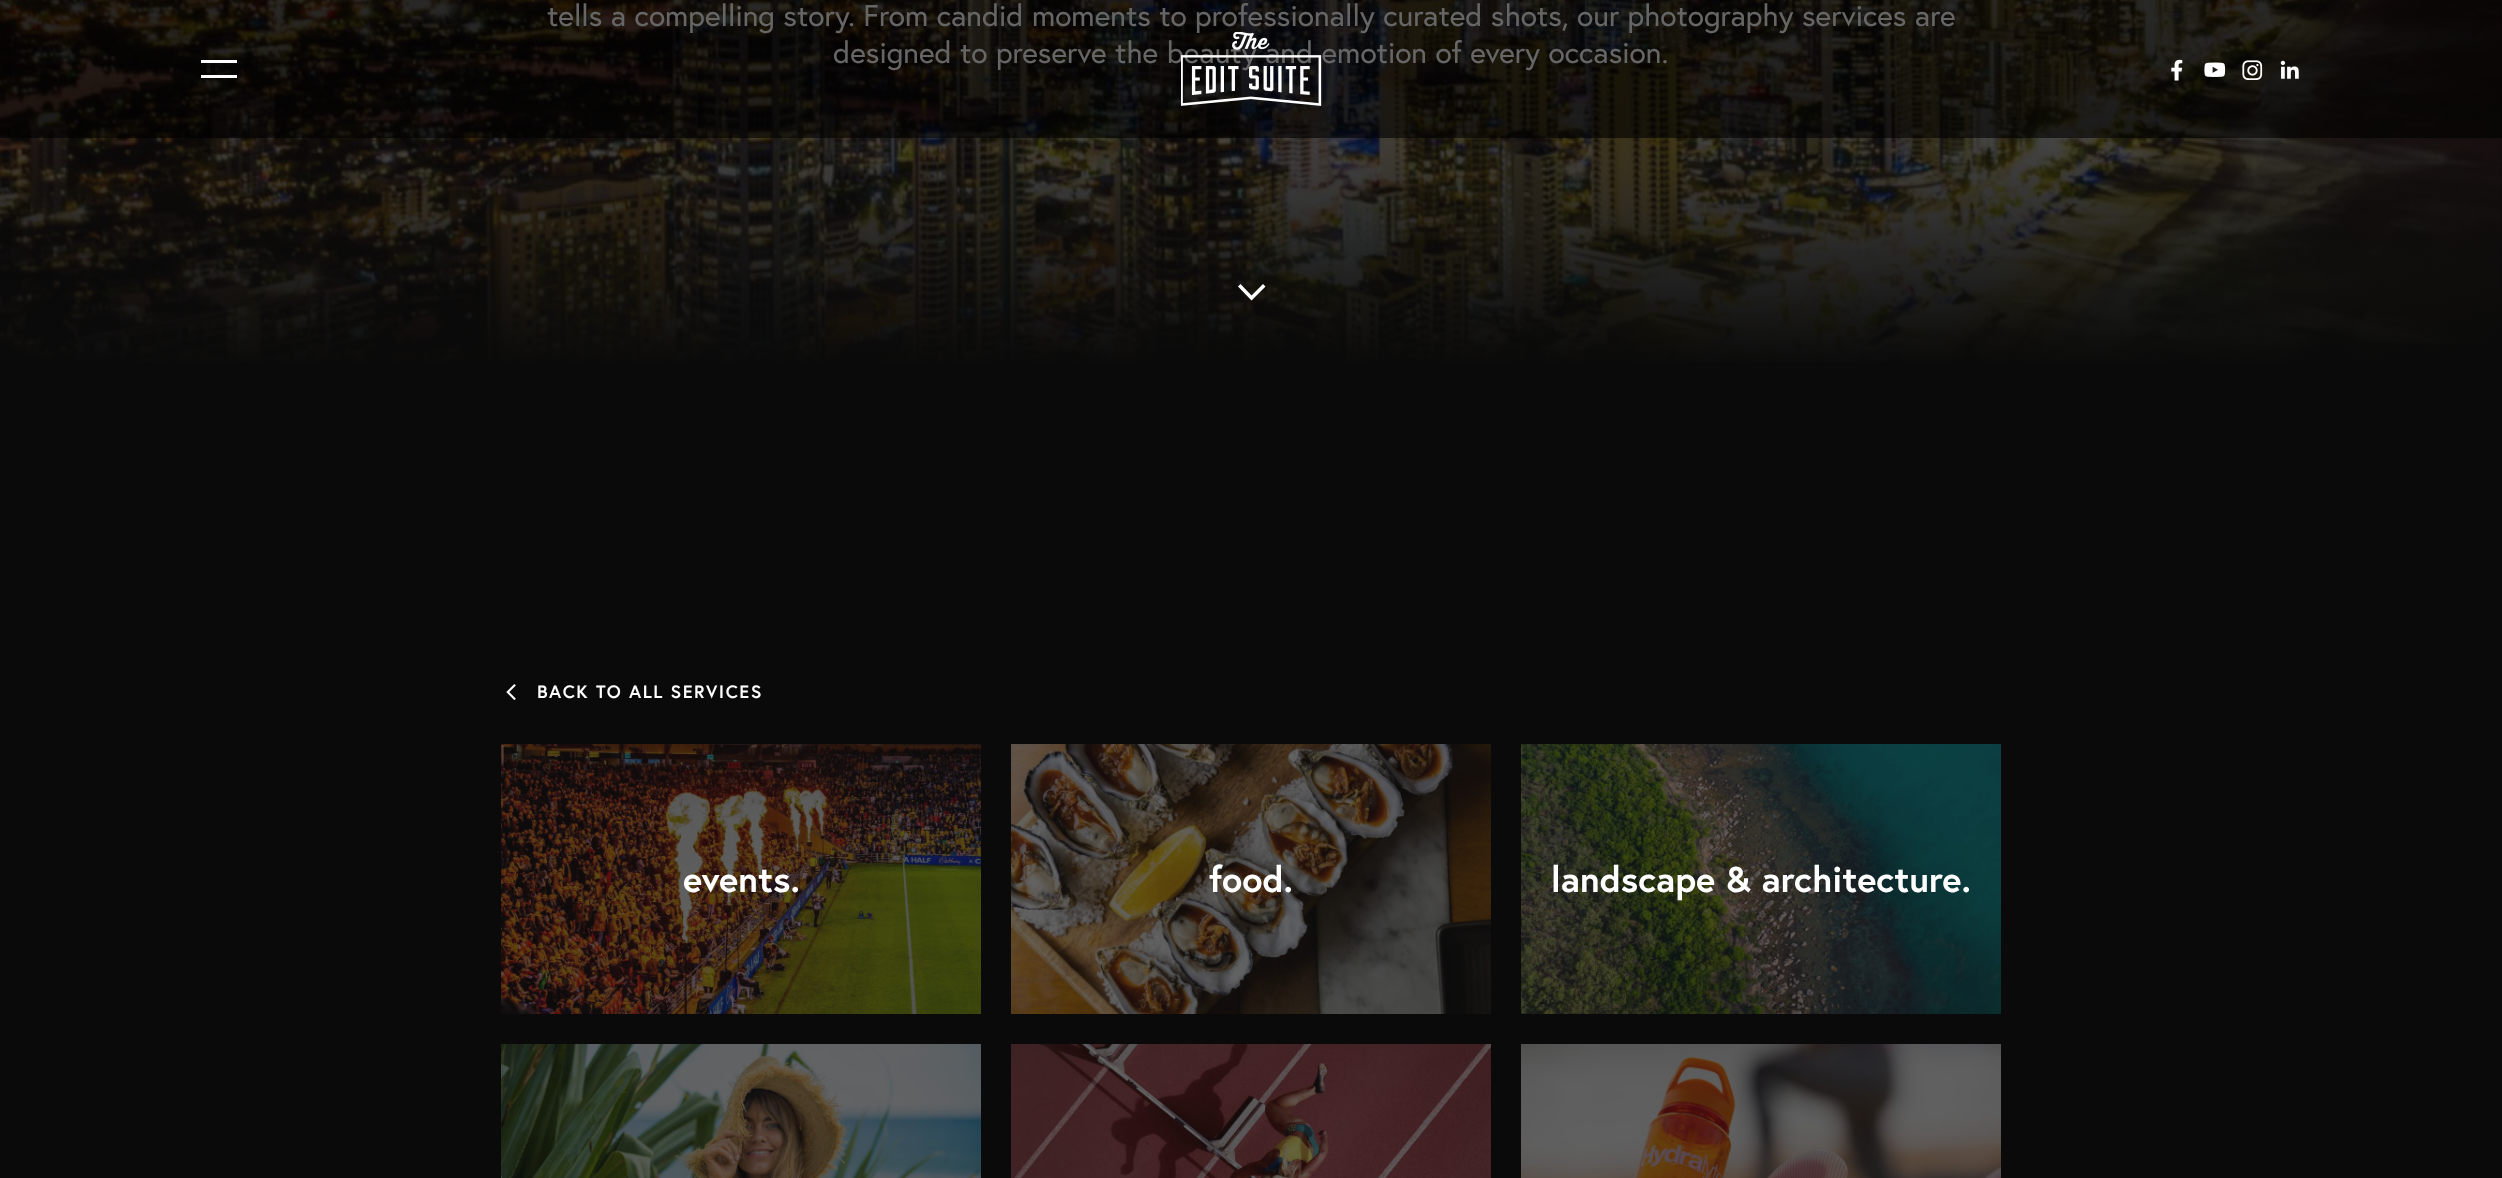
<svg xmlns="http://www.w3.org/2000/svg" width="2502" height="1178">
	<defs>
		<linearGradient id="g1" gradientUnits="userSpaceOnUse" x1="1251" y1="-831" x2="1251" y2="369"><stop offset="0.6" stop-color="#0A0A0A" stop-opacity="0.5" /><stop offset="1" stop-color="#0A0A0A" /></linearGradient>
	</defs>
	<rect width="100%" height="100%" fill="#0A0A0A" />
	<image x="0" y="0" width="2502" height="363" href="assets/img6.png" />
	<rect x="0" y="0" width="2502" height="363" fill="url(#g1)" />
	<g font-family="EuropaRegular" font-size="30" fill="#FFFFFF">
		<text x="547" y="26">tells a compelling story. From candid moments to professionally curated shots, our photography services are</text>
		<text x="833" y="63">designed to preserve the beauty and emotion of every occasion.</text>
	</g>
	<rect x="0" y="0" width="2502" height="138" fill="#000000" fill-opacity="0.6" />
	<rect x="201" y="60" width="36" height="3" fill="#FFFFFF" />
	<rect x="201" y="75" width="36" height="3" fill="#FFFFFF" />
	<image x="1181" y="32" width="141" height="74" href="assets/img1.png" />
	<image x="2171" y="59" width="12" height="22" href="assets/img2.png" />
	<image x="2204" y="62" width="22" height="15" href="assets/img3.png" />
	<image x="2242" y="60" width="21" height="20" href="assets/img4.png" />
	<image x="2280" y="60" width="19" height="19" href="assets/img5.png" />
	<path d="M1251.5 295.5L1240.5 284L1238 286.5L1251.5 300.5L1265.5 286.5L1263 284Z" fill="#FFFFFF" fill-rule="evenodd" />
	<image x="506" y="684" width="10" height="17" href="assets/img7.png" />
	<text x="537" y="698" font-family="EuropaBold" font-size="18" font-weight="700" letter-spacing="1.5" fill="#FFFFFF">BACK TO ALL SERVICES</text>
	<rect x="501" y="744" width="480" height="270" fill="#111111" />
	<image x="501" y="744" width="480" height="270" href="assets/img8.png" />
	<text x="683" y="892" font-family="EuropaBold" font-size="36" font-weight="700" fill="#FFFFFF">events.</text>
	<rect x="1011" y="744" width="480" height="270" fill="#111111" />
	<image x="1011" y="744" width="480" height="270" href="assets/img9.png" />
	<text x="1209" y="892" font-family="EuropaBold" font-size="36" font-weight="700" fill="#FFFFFF">food.</text>
	<rect x="1521" y="744" width="480" height="270" fill="#111111" />
	<image x="1521" y="744" width="480" height="270" href="assets/img10.png" />
	<text x="1551" y="892" font-family="EuropaBold" font-size="36" font-weight="700" fill="#FFFFFF">landscape &amp; architecture.</text>
	<rect x="501" y="1044" width="480" height="134" fill="#111111" />
	<image x="501" y="1044" width="480" height="134" href="assets/img11.png" />
	<rect x="1011" y="1044" width="480" height="134" fill="#111111" />
	<image x="1011" y="1044" width="480" height="134" href="assets/img12.png" />
	<rect x="1521" y="1044" width="480" height="134" fill="#111111" />
	<image x="1521" y="1044" width="480" height="134" href="assets/img13.png" />
</svg>
